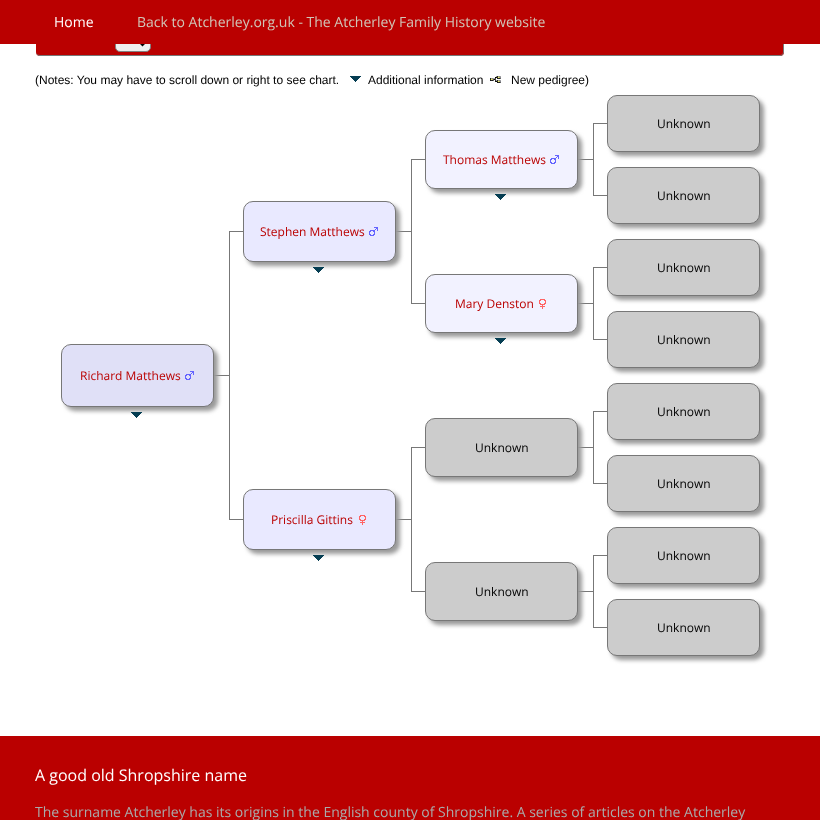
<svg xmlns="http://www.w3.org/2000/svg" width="820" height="820">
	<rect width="100%" height="100%" fill="#FFFFFF" />
	<rect x="36" y="31" width="748" height="25" rx="4" fill="#BA0000" />
	<path d="M40 31H780C782 31 784 33 784 35V52C784 54 782 56 780 56H40C38 56 36 54 36 52V35C36 33 38 31 40 31ZM40 31H780C782 31 783 33 783 35V52C783 54 782 55 780 55H40C38 55 36 54 36 52V35C36 33 38 31 40 31Z" fill="#777777" fill-rule="evenodd" />
	<rect x="115.5" y="34.5" width="35" height="17" rx="4.5" fill="#EFEFEF" stroke="#808080" />
	<path d="M138.5 41L142.5 45L146.5 41" fill="none" stroke="#000000" stroke-width="2" />
	<rect x="0" y="0" width="820" height="44" fill="#BA0000" />
	<text x="54" y="27" font-family="Open Sans" font-size="14" fill="#FFFFFF">Home</text>
	<text x="137" y="27" font-family="Open Sans" font-size="14" fill="#D1C5B7">Back to Atcherley.org.uk - The Atcherley Family History website</text>
	<text x="35" y="84" font-family="Liberation Sans" font-size="12" fill="#000000">(Notes: You may have to scroll down or right to see chart.</text>
	<image x="350" y="76" width="11" height="6" href="assets/img1.png" />
	<text x="368" y="84" font-family="Liberation Sans" font-size="12" fill="#000000">Additional information</text>
	<image x="490" y="76" width="11" height="7" href="assets/img2.png" />
	<text x="511" y="84" font-family="Liberation Sans" font-size="12" fill="#000000">New pedigree)</text>
	<rect x="593" y="123" width="17" height="1" fill="#777777" />
	<rect x="611" y="99" width="153" height="57" rx="10" fill="#999999" filter="blur(2px)" />
	<rect x="607.5" y="95.5" width="152" height="56" rx="9.5" fill="#CCCCCC" stroke="#777777" />
	<text x="657" y="128" font-family="Open Sans" font-size="12" fill="#000000">Unknown</text>
	<rect x="411" y="159" width="17" height="1" fill="#777777" />
	<rect x="577" y="159" width="16" height="1" fill="#777777" />
	<rect x="429" y="134" width="153" height="59" rx="10" fill="#999999" filter="blur(2px)" />
	<rect x="425.5" y="130.5" width="152" height="58" rx="9.5" fill="#F2F2FF" stroke="#777777" />
	<text x="443" y="164" font-family="Open Sans" font-size="12" fill="#BA0000">Thomas Matthews</text>
	<image x="550" y="155" width="9" height="9" href="assets/img3.png" />
	<rect x="593" y="123" width="1" height="37" fill="#777777" />
	<rect x="411" y="159" width="1" height="73" fill="#777777" />
	<image x="495" y="194" width="11" height="6" href="assets/img4.png" />
	<rect x="593" y="195" width="17" height="1" fill="#777777" />
	<rect x="593" y="160" width="1" height="36" fill="#777777" />
	<rect x="611" y="171" width="153" height="57" rx="10" fill="#999999" filter="blur(2px)" />
	<rect x="607.5" y="167.5" width="152" height="56" rx="9.5" fill="#CCCCCC" stroke="#777777" />
	<text x="657" y="200" font-family="Open Sans" font-size="12" fill="#000000">Unknown</text>
	<rect x="229" y="231" width="17" height="1" fill="#777777" />
	<rect x="395" y="231" width="16" height="1" fill="#777777" />
	<rect x="247" y="205" width="153" height="61" rx="10" fill="#999999" filter="blur(2px)" />
	<rect x="243.5" y="201.5" width="152" height="60" rx="9.5" fill="#E9E9FF" stroke="#777777" />
	<text x="260" y="236" font-family="Open Sans" font-size="12" fill="#BA0000">Stephen Matthews</text>
	<image x="369" y="227" width="9" height="9" href="assets/img5.png" />
	<rect x="229" y="231" width="1" height="145" fill="#777777" />
	<image x="313" y="267" width="11" height="6" href="assets/img4.png" />
	<rect x="411" y="303" width="17" height="1" fill="#777777" />
	<rect x="411" y="232" width="1" height="72" fill="#777777" />
	<rect x="593" y="267" width="17" height="1" fill="#777777" />
	<rect x="611" y="243" width="153" height="57" rx="10" fill="#999999" filter="blur(2px)" />
	<rect x="607.5" y="239.5" width="152" height="56" rx="9.5" fill="#CCCCCC" stroke="#777777" />
	<text x="657" y="272" font-family="Open Sans" font-size="12" fill="#000000">Unknown</text>
	<rect x="577" y="303" width="16" height="1" fill="#777777" />
	<rect x="429" y="278" width="153" height="59" rx="10" fill="#999999" filter="blur(2px)" />
	<rect x="425.5" y="274.5" width="152" height="58" rx="9.5" fill="#F2F2FF" stroke="#777777" />
	<text x="455" y="308" font-family="Open Sans" font-size="12" fill="#BA0000">Mary Denston</text>
	<image x="539" y="299" width="7" height="10" href="assets/img6.png" />
	<rect x="593" y="267" width="1" height="37" fill="#777777" />
	<image x="495" y="338" width="11" height="6" href="assets/img4.png" />
	<rect x="593" y="339" width="17" height="1" fill="#777777" />
	<rect x="593" y="304" width="1" height="36" fill="#777777" />
	<rect x="611" y="315" width="153" height="57" rx="10" fill="#999999" filter="blur(2px)" />
	<rect x="607.5" y="311.5" width="152" height="56" rx="9.5" fill="#CCCCCC" stroke="#777777" />
	<text x="657" y="344" font-family="Open Sans" font-size="12" fill="#000000">Unknown</text>
	<rect x="213" y="375" width="16" height="1" fill="#777777" />
	<rect x="65" y="348" width="153" height="63" rx="10" fill="#999999" filter="blur(2px)" />
	<rect x="61.5" y="344.5" width="152" height="62" rx="9.5" fill="#E0E0F7" stroke="#777777" />
	<text x="80" y="380" font-family="Open Sans" font-size="12" fill="#BA0000">Richard Matthews</text>
	<image x="185" y="371" width="9" height="9" href="assets/img7.png" />
	<rect x="229" y="519" width="17" height="1" fill="#777777" />
	<rect x="229" y="376" width="1" height="144" fill="#777777" />
	<rect x="593" y="411" width="17" height="1" fill="#777777" />
	<rect x="611" y="387" width="153" height="57" rx="10" fill="#999999" filter="blur(2px)" />
	<rect x="607.5" y="383.5" width="152" height="56" rx="9.5" fill="#CCCCCC" stroke="#777777" />
	<text x="657" y="416" font-family="Open Sans" font-size="12" fill="#000000">Unknown</text>
	<image x="131" y="412" width="11" height="6" href="assets/img4.png" />
	<rect x="593" y="411" width="1" height="37" fill="#777777" />
	<rect x="411" y="447" width="17" height="1" fill="#777777" />
	<rect x="577" y="447" width="16" height="1" fill="#777777" />
	<rect x="429" y="422" width="153" height="59" rx="10" fill="#999999" filter="blur(2px)" />
	<rect x="425.5" y="418.5" width="152" height="58" rx="9.5" fill="#CCCCCC" stroke="#777777" />
	<text x="475" y="452" font-family="Open Sans" font-size="12" fill="#000000">Unknown</text>
	<rect x="411" y="447" width="1" height="73" fill="#777777" />
	<rect x="593" y="483" width="17" height="1" fill="#777777" />
	<rect x="593" y="448" width="1" height="36" fill="#777777" />
	<rect x="611" y="459" width="153" height="57" rx="10" fill="#999999" filter="blur(2px)" />
	<rect x="607.5" y="455.5" width="152" height="56" rx="9.5" fill="#CCCCCC" stroke="#777777" />
	<text x="657" y="488" font-family="Open Sans" font-size="12" fill="#000000">Unknown</text>
	<rect x="395" y="519" width="16" height="1" fill="#777777" />
	<rect x="247" y="493" width="153" height="61" rx="10" fill="#999999" filter="blur(2px)" />
	<rect x="243.5" y="489.5" width="152" height="60" rx="9.5" fill="#E9E9FF" stroke="#777777" />
	<text x="271" y="524" font-family="Open Sans" font-size="12" fill="#BA0000">Priscilla Gittins</text>
	<image x="359" y="515" width="7" height="10" href="assets/img8.png" />
	<image x="313" y="555" width="11" height="6" href="assets/img4.png" />
	<rect x="411" y="591" width="17" height="1" fill="#777777" />
	<rect x="411" y="520" width="1" height="72" fill="#777777" />
	<rect x="593" y="555" width="17" height="1" fill="#777777" />
	<rect x="611" y="531" width="153" height="57" rx="10" fill="#999999" filter="blur(2px)" />
	<rect x="607.5" y="527.5" width="152" height="56" rx="9.5" fill="#CCCCCC" stroke="#777777" />
	<text x="657" y="560" font-family="Open Sans" font-size="12" fill="#000000">Unknown</text>
	<rect x="577" y="591" width="16" height="1" fill="#777777" />
	<rect x="429" y="566" width="153" height="59" rx="10" fill="#999999" filter="blur(2px)" />
	<rect x="425.5" y="562.5" width="152" height="58" rx="9.5" fill="#CCCCCC" stroke="#777777" />
	<text x="475" y="596" font-family="Open Sans" font-size="12" fill="#000000">Unknown</text>
	<rect x="593" y="555" width="1" height="37" fill="#777777" />
	<rect x="593" y="627" width="17" height="1" fill="#777777" />
	<rect x="593" y="592" width="1" height="36" fill="#777777" />
	<rect x="611" y="603" width="153" height="57" rx="10" fill="#999999" filter="blur(2px)" />
	<rect x="607.5" y="599.5" width="152" height="56" rx="9.5" fill="#CCCCCC" stroke="#777777" />
	<text x="657" y="632" font-family="Open Sans" font-size="12" fill="#000000">Unknown</text>
	<rect x="0" y="736" width="820" height="84" fill="#BA0000" />
	<text x="35" y="781" font-family="Open Sans" font-size="16" fill="#FFFFFF">A good old Shropshire name</text>
	<text x="35" y="817" font-family="Open Sans" font-size="14" fill="#AAAAAA">The surname Atcherley has its origins in the English county of Shropshire. A series of articles on the Atcherley</text>
</svg>
